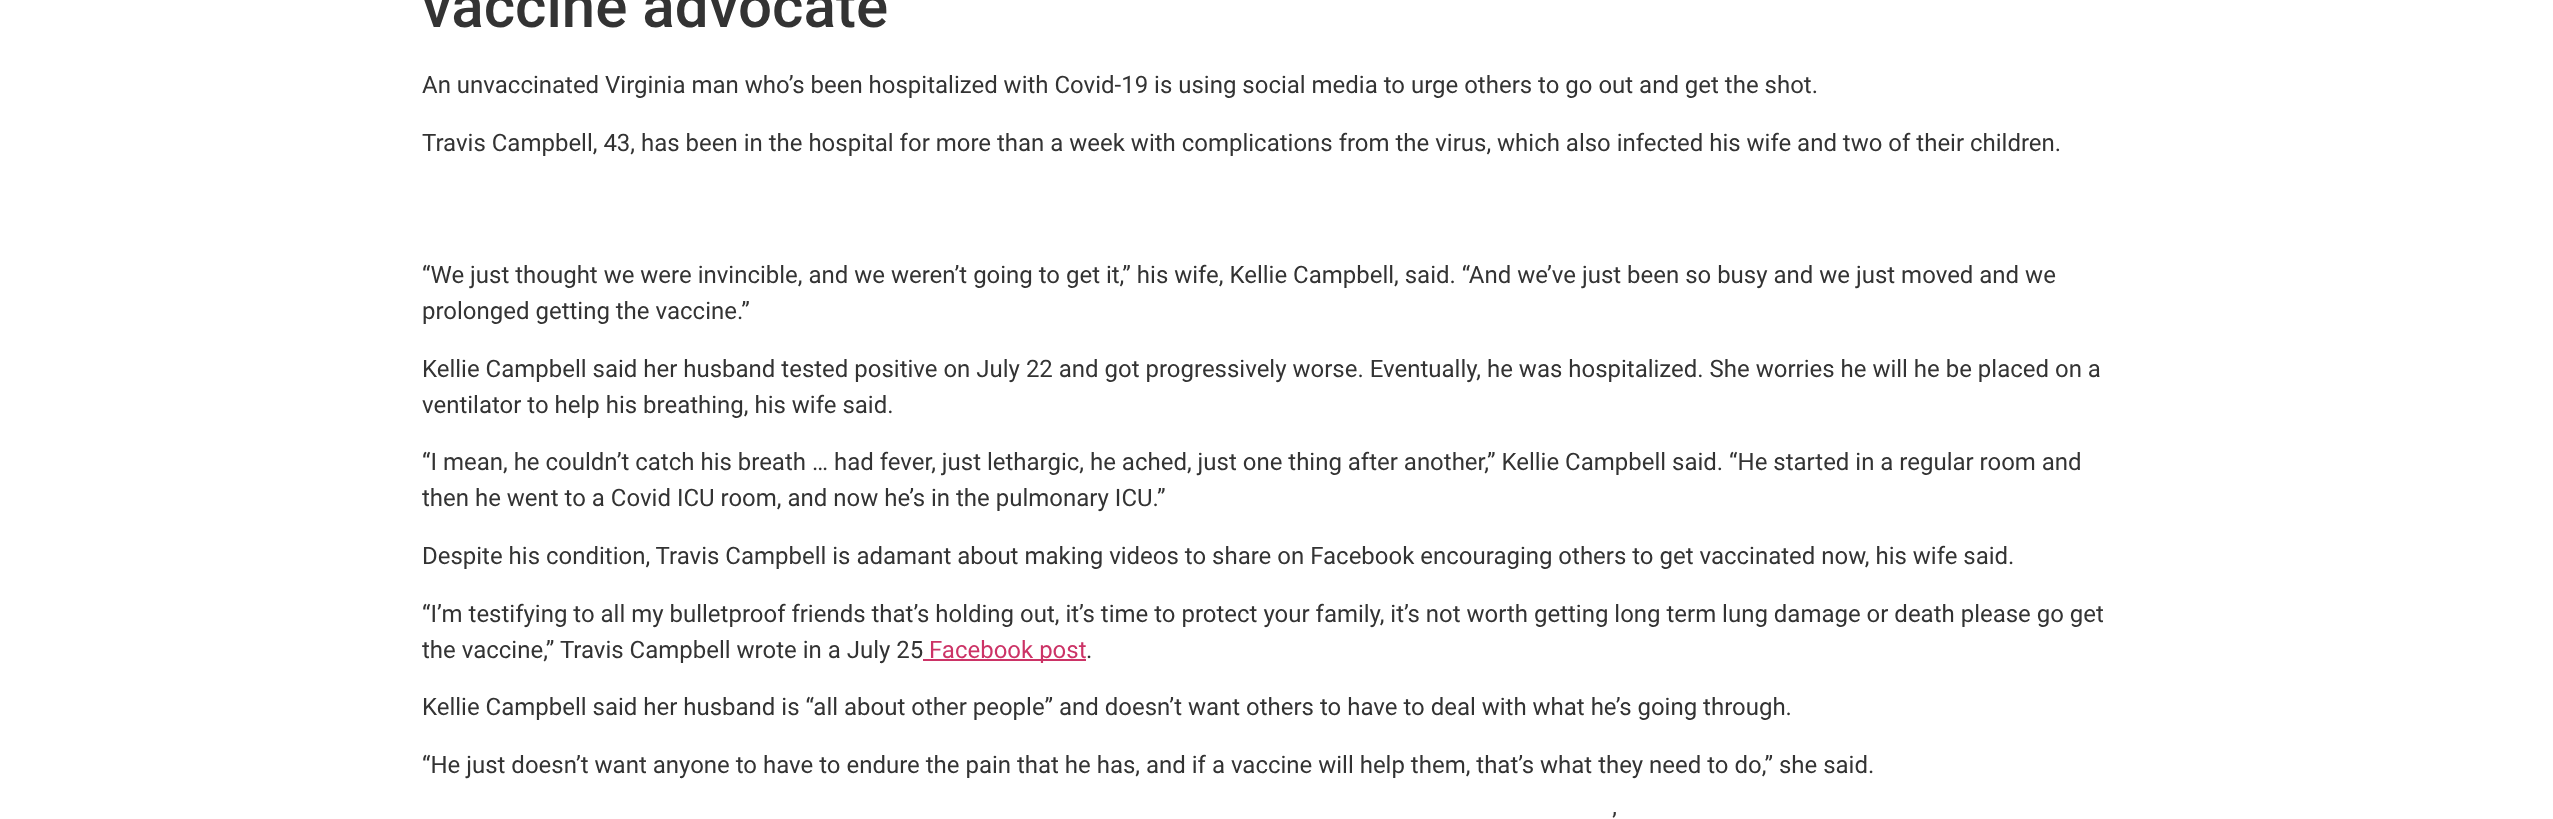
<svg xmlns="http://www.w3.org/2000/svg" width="2553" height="819">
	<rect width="100%" height="100%" fill="#FFFFFF" />
	<text x="422" y="27" font-family="Roboto" font-size="60" font-weight="500" fill="#333333">vaccine advocate</text>
	<g font-family="Roboto" font-size="24" fill="#333333">
		<text x="422" y="93">An unvaccinated Virginia man who’s been hospitalized with Covid-19 is using social media to urge others to go out and get the shot.</text>
		<text x="422" y="151">Travis Campbell, 43, has been in the hospital for more than a week with complications from the virus, which also infected his wife and two of their children.</text>
		<text x="422" y="283">“We just thought we were invincible, and we weren’t going to get it,” his wife, Kellie Campbell, said. “And we’ve just been so busy and we just moved and we</text>
		<text x="422" y="319">prolonged getting the vaccine.”</text>
		<text x="422" y="377">Kellie Campbell said her husband tested positive on July 22 and got progressively worse. Eventually, he was hospitalized. She worries he will he be placed on a</text>
		<text x="422" y="413">ventilator to help his breathing, his wife said.</text>
		<text x="422" y="470">“I mean, he couldn’t catch his breath … had fever, just lethargic, he ached, just one thing after another,” Kellie Campbell said. “He started in a regular room and</text>
		<text x="422" y="506">then he went to a Covid ICU room, and now he’s in the pulmonary ICU.”</text>
		<text x="422" y="564">Despite his condition, Travis Campbell is adamant about making videos to share on Facebook encouraging others to get vaccinated now, his wife said.</text>
		<text x="422" y="622">“I’m testifying to all my bulletproof friends that’s holding out, it’s time to protect your family, it’s not worth getting long term lung damage or death please go get</text>
		<text x="422" y="658">the vaccine,” Travis Campbell wrote in a July 25</text>
	</g>
	<rect x="923" y="659" width="163" height="2" fill="#CC3366" />
	<text x="929" y="658" font-family="Roboto" font-size="24" fill="#CC3366">Facebook post</text>
	<g font-family="Roboto" font-size="24" fill="#333333">
		<text x="1086" y="658">.</text>
		<text x="422" y="715">Kellie Campbell said her husband is “all about other people” and doesn’t want others to have to deal with what he’s going through.</text>
		<text x="422" y="773">“He just doesn’t want anyone to have to endure the pain that he has, and if a vaccine will help them, that’s what they need to do,” she said.</text>
		<text x="1612" y="830">’</text>
	</g>
</svg>
